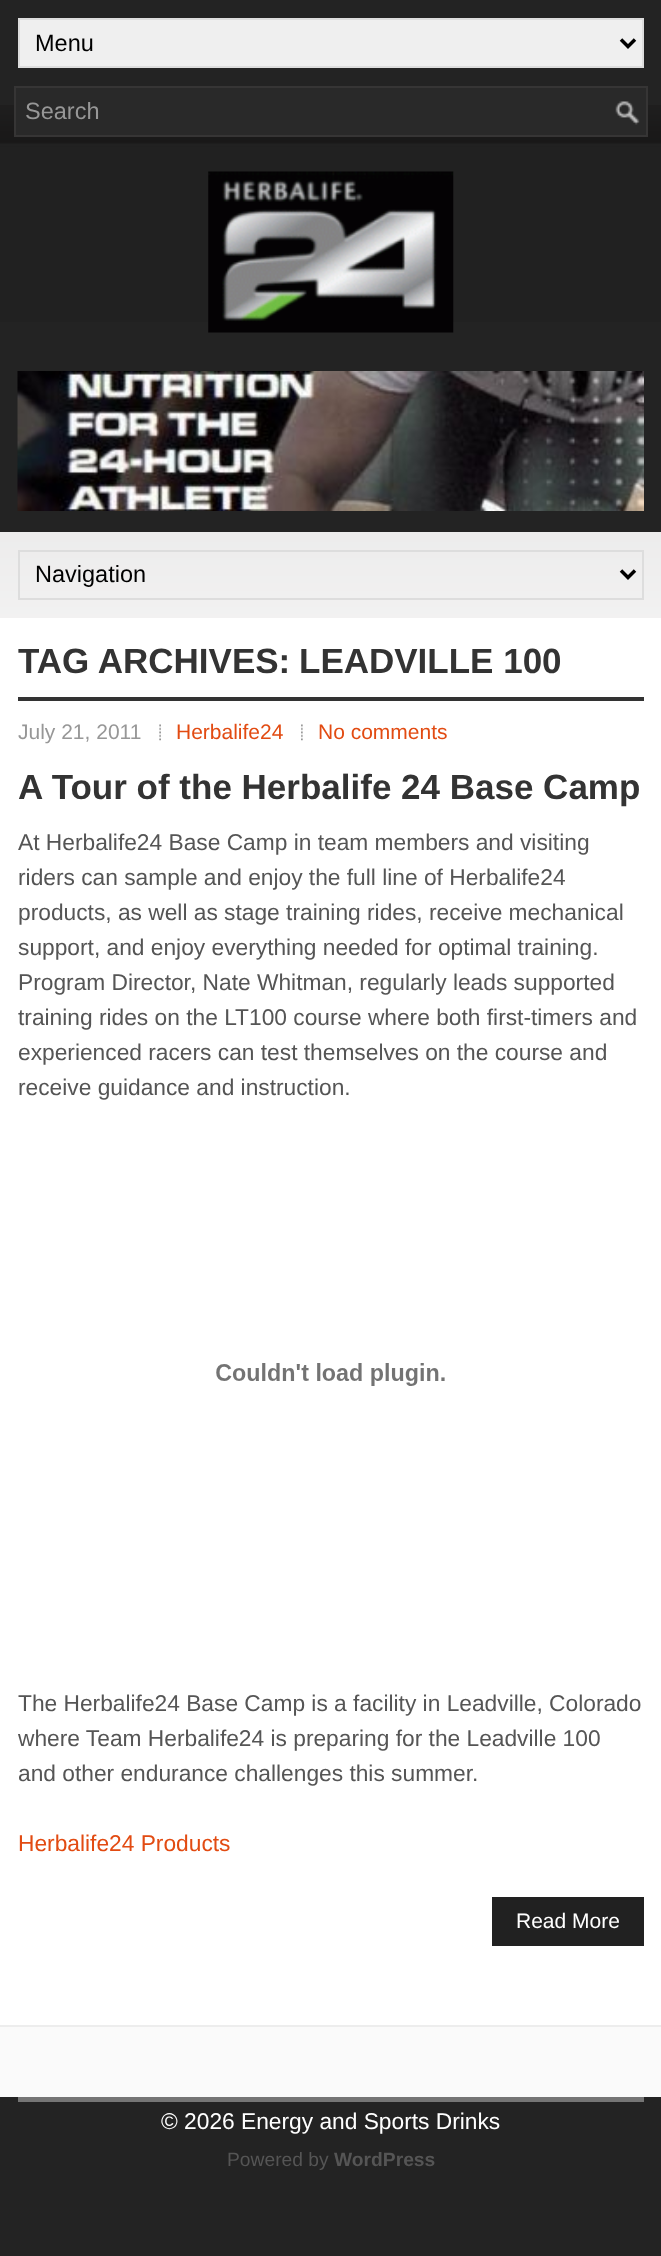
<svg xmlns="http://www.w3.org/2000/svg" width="661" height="2256">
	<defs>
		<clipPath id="clip1"><rect x="18" y="644" width="626" height="1355" /></clipPath>
	</defs>
	<rect width="100%" height="100%" fill="#232323" />
	<image x="0" y="105" width="661" height="513" href="assets/img1.png" />
	<rect x="19" y="19" width="624" height="48" fill="#EFEFEF" stroke="#DDDDDD" stroke-width="2" />
	<path d="M621 39.5L628 46.5L635 39.5" fill="none" stroke="#000000" stroke-width="3.5" />
	<text x="35" y="51" font-family="Liberation Sans" font-size="23.5" fill="#000000">Menu</text>
	<rect x="16" y="88" width="630" height="47" fill="#292929" />
	<image x="615" y="101" width="25" height="24" href="assets/img2.png" />
	<rect x="15" y="87" width="632" height="49" fill="none" stroke="#363535" stroke-width="2" />
	<text x="25" y="119" font-family="Liberation Sans" font-size="23.5" fill="#979797">Search</text>
	<rect x="0" y="322" width="661" height="210" fill="#232323" />
	<image x="208" y="171" width="246" height="162" href="assets/img3.png" />
	<image x="17" y="371" width="627" height="140" href="assets/img4.png" />
	<rect x="19" y="551" width="624" height="48" fill="none" stroke="#DDDDDD" stroke-width="2" />
	<path d="M621 570.5L628 577.5L635 570.5" fill="none" stroke="#000000" stroke-width="3.5" />
	<text x="35" y="582" font-family="Liberation Sans" font-size="23.5" fill="#000000">Navigation</text>
	<rect x="0" y="618" width="661" height="1407" fill="#FFFFFF" />
	<rect x="18" y="697" width="626" height="4" fill="#333333" />
	<g clip-path="url(#clip1)">
		<text x="18" y="673" font-family="Liberation Sans" font-size="35" font-weight="700" fill="#333333">TAG ARCHIVES:</text>
	</g>
	<text x="299" y="673" font-family="Liberation Sans" font-size="35" font-weight="700" fill="#333333">LEADVILLE 100</text>
	<text x="18" y="739" font-family="Liberation Sans" font-size="21" fill="#979797">July 21, 2011</text>
	<image x="159" y="724" width="2" height="17" href="assets/img5.png" />
	<text x="176" y="739" font-family="Liberation Sans" font-size="21" fill="#E24B12">Herbalife24</text>
	<image x="301" y="724" width="2" height="17" href="assets/img6.png" />
	<text x="318" y="739" font-family="Liberation Sans" font-size="21" fill="#E24B12">No comments</text>
	<text x="18" y="799" font-family="Liberation Sans" font-size="35" font-weight="700" fill="#333333">A Tour of the Herbalife 24 Base Camp</text>
	<g font-family="Liberation Sans" font-size="22.75" fill="#555555">
		<text x="18" y="850">At Herbalife24 Base Camp in team members and visiting</text>
		<text x="18" y="885">riders can sample and enjoy the full line of Herbalife24</text>
		<text x="18" y="920">products, as well as stage training rides, receive mechanical</text>
		<text x="18" y="955">support, and enjoy everything needed for optimal training.</text>
		<text x="18" y="990">Program Director, Nate Whitman, regularly leads supported</text>
		<text x="18" y="1025">training rides on the LT100 course where both first-timers and</text>
		<text x="18" y="1060">experienced racers can test themselves on the course and</text>
		<text x="18" y="1095">receive guidance and instruction.</text>
	</g>
	<image x="216" y="1363" width="229" height="23" href="assets/img7.png" />
	<g font-family="Liberation Sans" font-size="22.75" fill="#555555">
		<text x="18" y="1711">The Herbalife24 Base Camp is a facility in Leadville, Colorado</text>
		<text x="18" y="1746">where Team Herbalife24 is preparing for the Leadville 100</text>
		<text x="18" y="1781">and other endurance challenges this summer.</text>
	</g>
	<text x="18" y="1851" font-family="Liberation Sans" font-size="22.75" fill="#E24B12">Herbalife24 Products</text>
	<rect x="492" y="1897" width="152" height="49" fill="#212121" />
	<text x="516" y="1928" font-family="Liberation Sans" font-size="21" fill="#FFFFFF">Read More</text>
	<rect x="0" y="2027" width="661" height="70" fill="#FAFAFA" />
	<rect x="0" y="2025" width="661" height="2" fill="#EDEDED" />
	<rect x="18" y="2097" width="626" height="5" fill="#757575" />
	<text x="161" y="2129" font-family="Liberation Sans" font-size="22.75" fill="#FFFFFF">© 2026 Energy and Sports Drinks</text>
	<text x="227" y="2166" font-family="Liberation Sans" font-size="19.25" fill="#555555">Powered by</text>
	<text x="334" y="2166" font-family="Liberation Sans" font-size="19.25" font-weight="700" fill="#555555">WordPress</text>
</svg>
